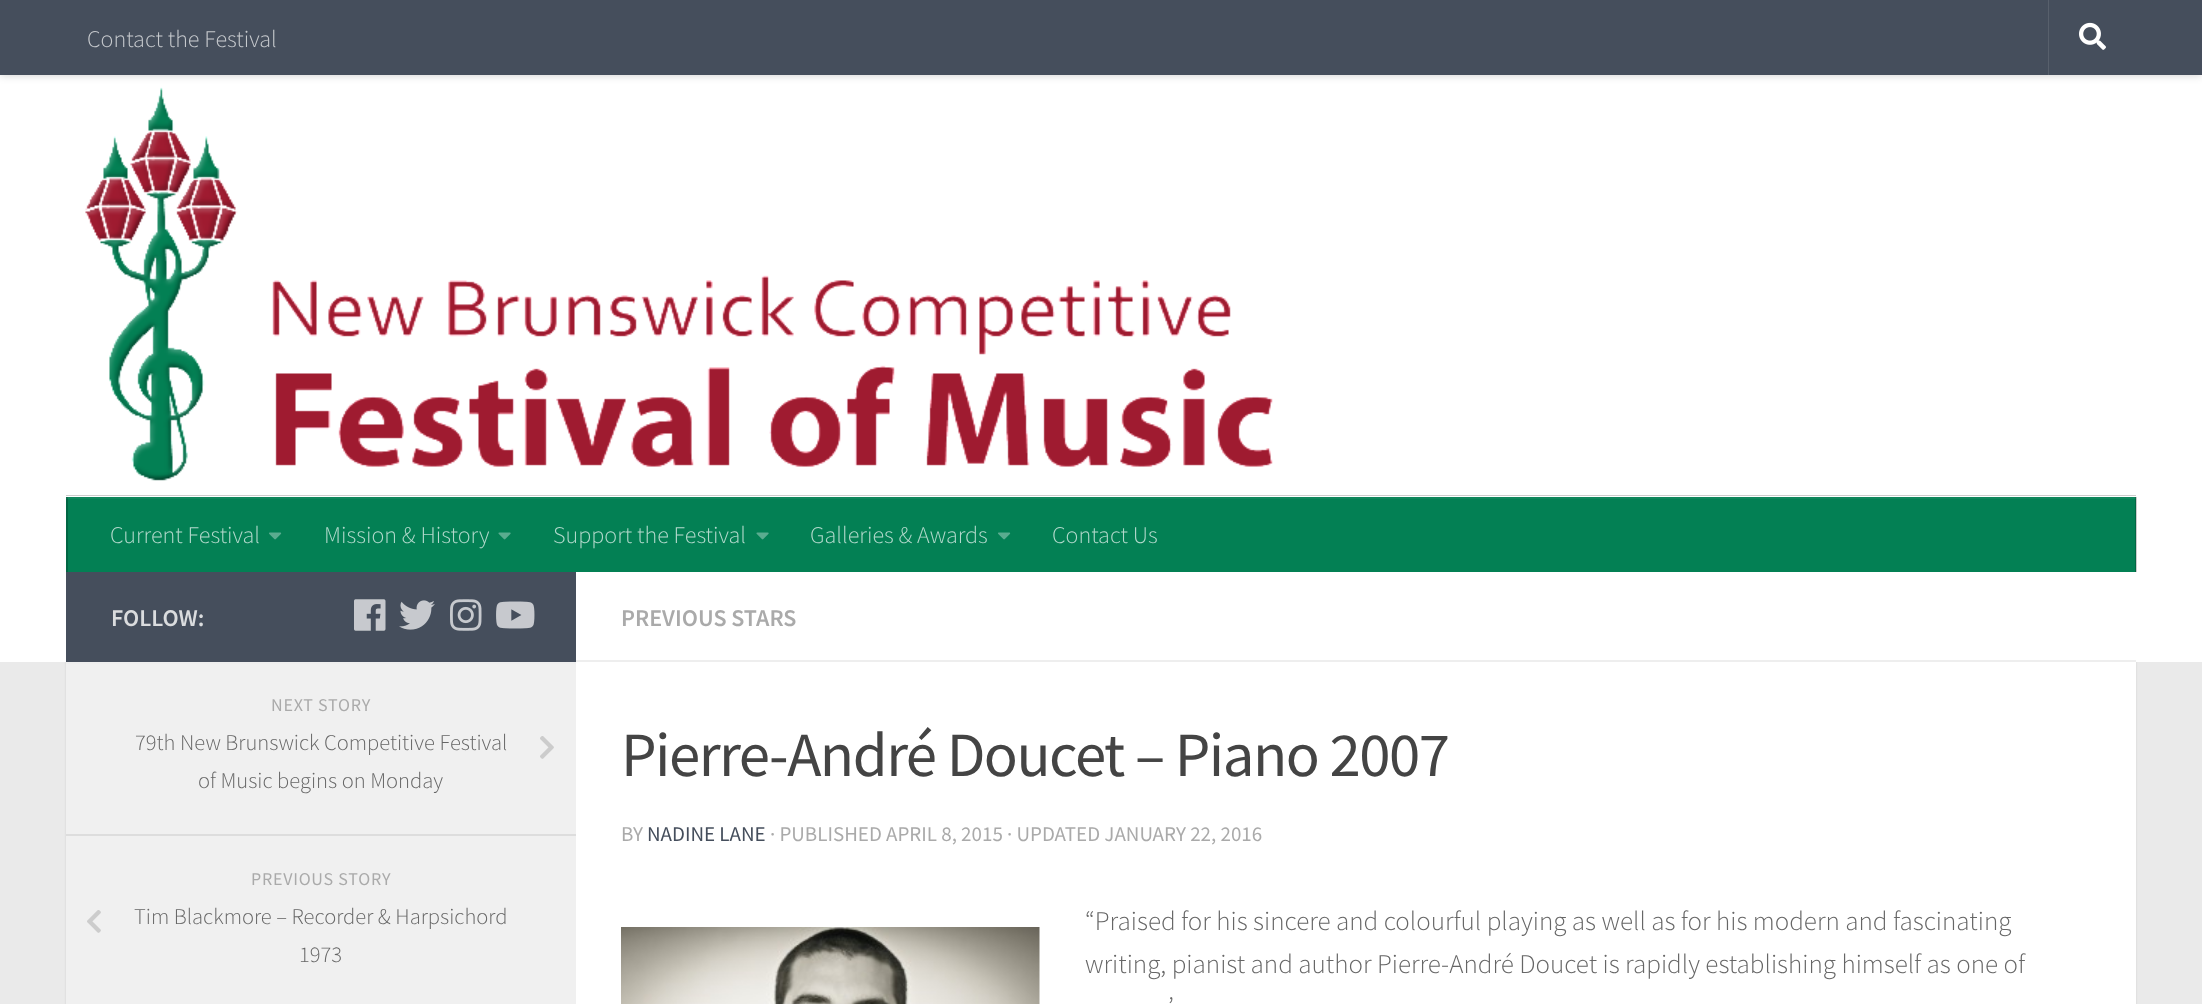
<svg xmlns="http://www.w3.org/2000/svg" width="2202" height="1004">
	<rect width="100%" height="100%" fill="#EAEAEA" />
	<rect x="66" y="573" width="2070" height="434" fill="#000000" fill-opacity="0.1" filter="blur(1px)" />
	<rect x="0" y="75" width="2202" height="587" fill="#FFFFFF" />
	<image x="85" y="87" width="1188" height="394" href="assets/img2.png" />
	<rect x="0" y="0" width="2202" height="75" fill="#000000" fill-opacity="0.2" filter="blur(4px)" />
	<rect x="0" y="0" width="2202" height="75" fill="#454E5C" />
	<text x="87" y="47" font-family="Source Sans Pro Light" font-size="24" font-weight="300" fill="#C7CACE">Contact the Festival</text>
	<rect x="2048" y="0" width="1" height="75" fill="#58606C" />
	<image x="2079" y="22" width="27" height="28" href="assets/img1.png" />
	<rect x="66" y="495" width="2070" height="1" fill="#CCCCCC" />
	<rect x="68" y="497" width="2068" height="75" fill="#038054" />
	<rect x="2135" y="497" width="2" height="75" fill="#000000" fill-opacity="0.2" />
	<rect x="66" y="497" width="2" height="75" fill="#026643" />
	<rect x="66" y="497" width="2070" height="2" fill="#FFFFFF" fill-opacity="0.05" />
	<text x="110" y="543" font-family="Source Sans Pro Light" font-size="24" font-weight="300" fill="#B3D9CC">Current Festival</text>
	<image x="269" y="532" width="13" height="8" href="assets/img3.png" />
	<text x="324" y="543" font-family="Source Sans Pro Light" font-size="24" font-weight="300" fill="#B3D9CC">Mission &amp; History</text>
	<image x="498" y="532" width="13" height="8" href="assets/img4.png" />
	<text x="553" y="543" font-family="Source Sans Pro Light" font-size="24" font-weight="300" fill="#B3D9CC">Support the Festival</text>
	<image x="756" y="532" width="13" height="8" href="assets/img4.png" />
	<text x="810" y="543" font-family="Source Sans Pro Light" font-size="24" font-weight="300" fill="#B3D9CC">Galleries &amp; Awards</text>
	<image x="998" y="532" width="13" height="8" href="assets/img3.png" />
	<text x="1052" y="543" font-family="Source Sans Pro Light" font-size="24" font-weight="300" fill="#B3D9CC">Contact Us</text>
	<rect x="576" y="662" width="1560" height="342" fill="#FFFFFF" />
	<rect x="66" y="572" width="510" height="90" fill="#454E5C" />
	<text x="111" y="626" font-family="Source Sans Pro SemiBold" font-size="24" font-weight="600" fill="#DADCDE">FOLLOW:</text>
	<image x="354" y="599" width="32" height="32" href="assets/img5.png" />
	<image x="399" y="600" width="36" height="30" href="assets/img6.png" />
	<image x="450" y="599" width="32" height="32" href="assets/img7.png" />
	<image x="496" y="601" width="39" height="28" href="assets/img8.png" />
	<rect x="66" y="662" width="510" height="2" fill="#EEEEEE" />
	<rect x="66" y="664" width="510" height="340" fill="#F0F0F0" />
	<rect x="66" y="834" width="510" height="2" fill="#DDDDDD" />
	<text x="271" y="711" font-family="Source Sans Pro" font-size="18" letter-spacing="0.75" fill="#AAAAAA">NEXT STORY</text>
	<text x="135" y="750" font-family="Source Sans Pro Light" font-size="22.5" font-weight="300" fill="#666666">79th New Brunswick Competitive Festival</text>
	<image x="540" y="736" width="14" height="23" href="assets/img9.png" />
	<text x="198" y="788" font-family="Source Sans Pro Light" font-size="22.5" font-weight="300" fill="#666666">of Music begins on Monday</text>
	<text x="251" y="885" font-family="Source Sans Pro" font-size="18" letter-spacing="0.75" fill="#AAAAAA">PREVIOUS STORY</text>
	<image x="87" y="910" width="14" height="23" href="assets/img10.png" />
	<g font-family="Source Sans Pro Light" font-size="22.5" font-weight="300" fill="#666666">
		<text x="134" y="924">Tim Blackmore – Recorder &amp; Harpsichord</text>
		<text x="299" y="962">1973</text>
	</g>
	<rect x="576" y="660" width="1560" height="2" fill="#EEEEEE" />
	<text x="621" y="626" font-family="Source Sans Pro SemiBold" font-size="24" font-weight="600" fill="#AAAAAA">PREVIOUS STARS</text>
	<text x="621" y="776" font-family="Source Sans Pro" font-size="62.9" letter-spacing="-1.5" fill="#444444">Pierre-André Doucet – Piano 2007</text>
	<text x="621" y="841" font-family="Source Sans Pro" font-size="21" fill="#AAAAAA">BY</text>
	<text x="647" y="841" font-family="Source Sans Pro" font-size="21" fill="#454E5C">NADINE LANE</text>
	<text x="770" y="841" font-family="Source Sans Pro" font-size="21" fill="#AAAAAA">· PUBLISHED APRIL 8, 2015 · UPDATED JANUARY 22, 2016</text>
	<image x="621" y="927" width="419" height="77" href="assets/img11.png" />
	<g font-family="Source Sans Pro Light" font-size="27" font-weight="300" fill="#666666">
		<text x="1085" y="930">“Praised for his sincere and colourful playing as well as for his modern and fascinating</text>
		<text x="1085" y="973">writing, pianist and author Pierre-André Doucet is rapidly establishing himself as one of</text>
		<text x="1168" y="1016">’</text>
	</g>
</svg>
